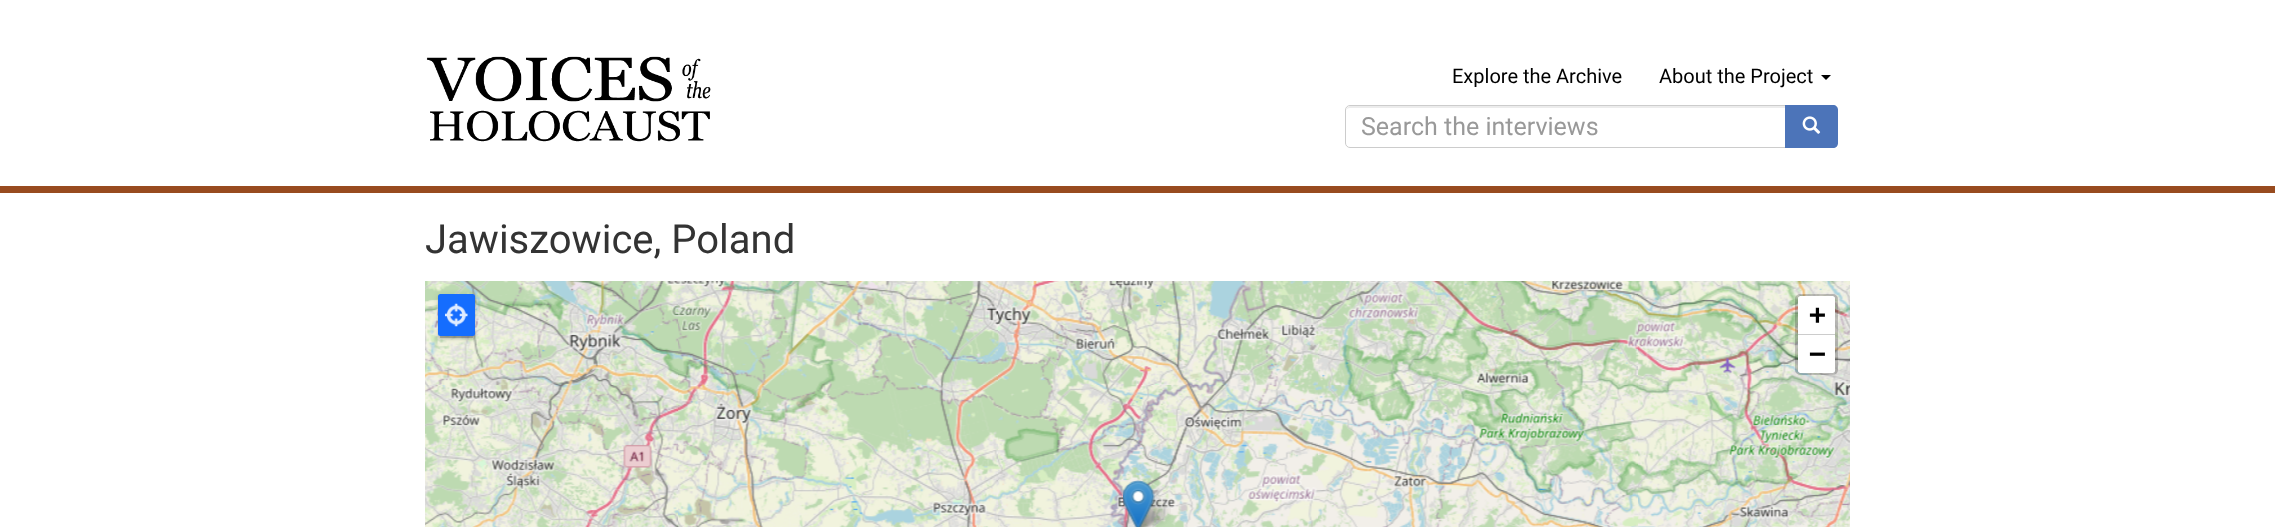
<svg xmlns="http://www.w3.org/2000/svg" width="2275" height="527">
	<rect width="100%" height="100%" fill="#FFFFFF" />
	<rect x="0" y="186" width="2275" height="7" fill="#984B1F" />
	<image x="426" y="56" width="285" height="86" href="assets/img1.png" />
	<g font-family="Roboto" font-size="20" fill="#000000">
		<text x="1452" y="83">Explore the Archive</text>
		<text x="1659" y="83">About the Project</text>
	</g>
	<path d="M1821 75H1831L1826 80Z" fill="#000000" />
	<path d="M1350 108H1788C1790 108 1791 109 1791 111C1791 108 1790 106 1787 106H1350L1348 107L1347 108L1346 111C1346 109 1348 108 1350 108Z" fill="#ECECEC" />
	<rect x="1345.5" y="105.5" width="447" height="42" rx="4.5" fill="none" stroke="#CCCCCC" />
	<text x="1361" y="135" font-family="Roboto" font-size="25" fill="#999999">Search the interviews</text>
	<path d="M1785 105H1833C1836 105 1838 107 1838 110V143C1838 146 1836 148 1833 148H1785Z" fill="#4C74B9" />
	<image x="1802" y="116" width="19" height="18" href="assets/img2.png" />
	<text x="425" y="253" font-family="Roboto" font-size="40" fill="#333333">Jawiszowice, Poland</text>
	<image x="425" y="281" width="253" height="104" href="assets/img3.png" />
	<image x="678" y="281" width="320" height="104" href="assets/img4.png" />
	<image x="998" y="281" width="320" height="104" href="assets/img5.png" />
	<image x="1318" y="281" width="320" height="104" href="assets/img6.png" />
	<image x="1638" y="281" width="212" height="104" href="assets/img7.png" />
	<image x="425" y="385" width="253" height="142" href="assets/img8.png" />
	<image x="678" y="385" width="320" height="142" href="assets/img9.png" />
	<image x="998" y="385" width="320" height="142" href="assets/img10.png" />
	<image x="1318" y="385" width="320" height="142" href="assets/img11.png" />
	<image x="1638" y="385" width="212" height="142" href="assets/img12.png" />
	<image x="1134" y="496" width="37" height="31" href="assets/img14.png" />
	<image x="1123" y="480" width="32" height="47" href="assets/img13.png" />
	<rect x="440" y="300" width="33" height="38" fill="#000000" fill-opacity="0.2" filter="blur(0.5px)" />
	<rect x="438" y="295" width="37" height="43" rx="2.5" fill="#000000" fill-opacity="0.12" filter="blur(3px)" />
	<rect x="438" y="296" width="37" height="43" rx="2.5" fill="#000000" fill-opacity="0.14" filter="blur(1px)" />
	<rect x="438" y="294" width="37" height="42" rx="2.5" fill="#156DFE" />
	<image x="445" y="303" width="23" height="24" href="assets/img15.png" />
	<rect x="1796.5" y="295.5" width="40" height="78" rx="3.5" fill="none" stroke="#000000" stroke-opacity="0.2" stroke-width="3" />
	<path d="M1800.5 296H1832.5C1834 296 1835 297 1835 298.5V335H1798V298.5C1798 297 1799 296 1800.5 296Z" fill="#FFFFFF" />
	<rect x="1798" y="334" width="37" height="1" fill="#CCCCCC" />
	<text x="1809" y="324" font-family="DejaVu Sans Mono" font-size="28" font-weight="700" fill="#000000">+</text>
	<path d="M1798 335H1835V370.5C1835 372 1834 373 1832.5 373H1800.5C1799 373 1798 372 1798 370.5Z" fill="#FFFFFF" />
	<text x="1809" y="363" font-family="DejaVu Sans Mono" font-size="28" font-weight="700" fill="#000000">−</text>
</svg>
